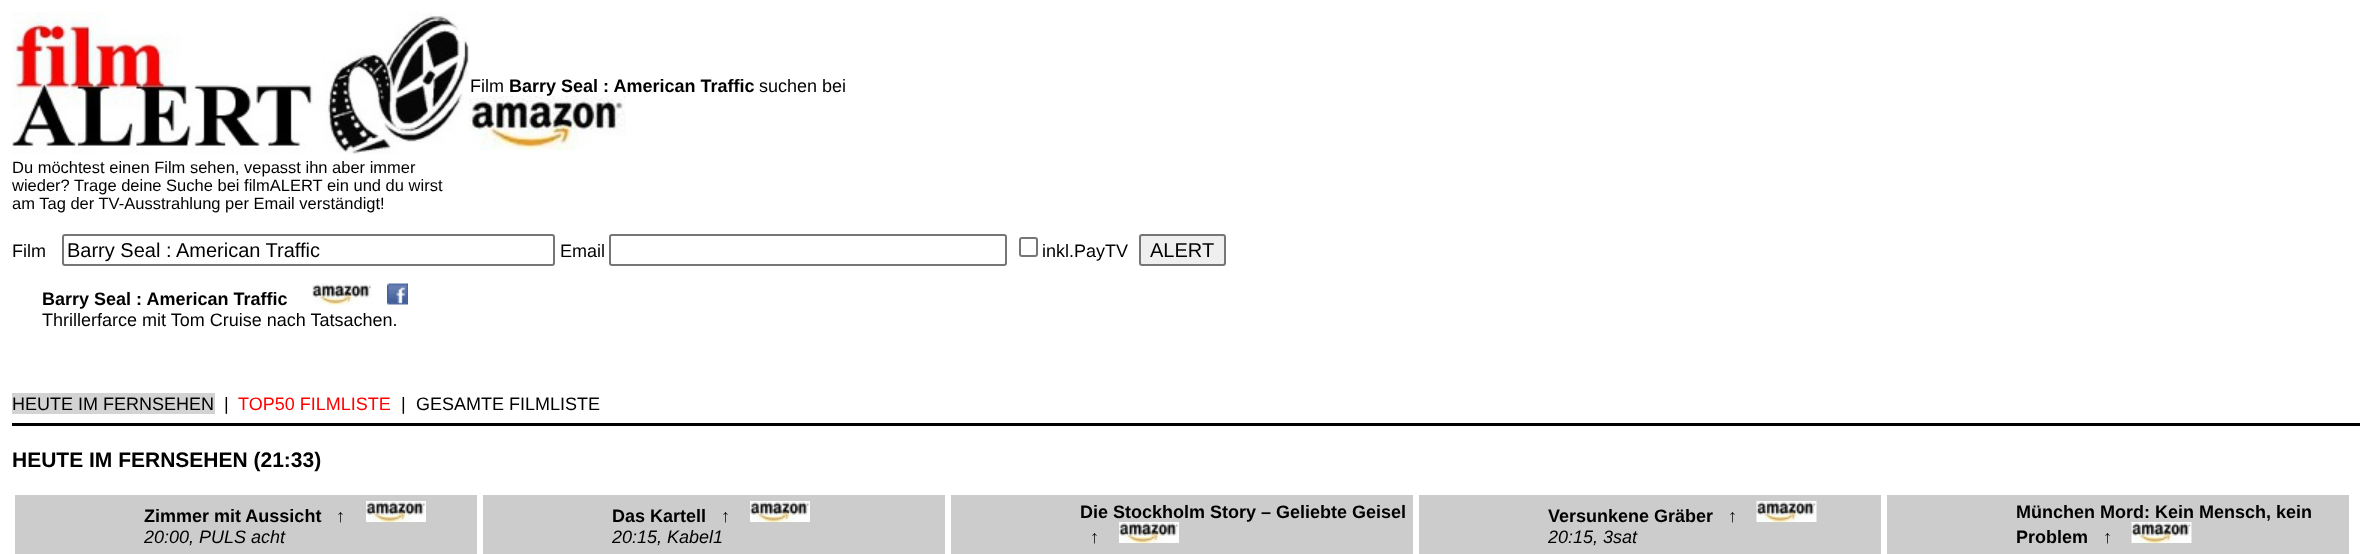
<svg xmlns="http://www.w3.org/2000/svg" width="2371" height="554">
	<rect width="100%" height="100%" fill="#FFFFFF" />
	<text x="470" y="92" font-family="Liberation Sans" font-size="18" fill="#000000">Film</text>
	<text x="509" y="92" font-family="Liberation Sans" font-size="18" font-weight="700" fill="#000000">Barry Seal : American Traffic</text>
	<text x="759" y="92" font-family="Liberation Sans" font-size="18" fill="#000000">suchen bei</text>
	<image x="469" y="96" width="157" height="54" href="assets/img1.png" />
	<image x="12" y="12" width="457" height="142" href="assets/img2.png" />
	<g font-family="Liberation Sans" font-size="16.5" fill="#000000">
		<text x="12" y="173">Du möchtest einen Film sehen, vepasst ihn aber immer</text>
		<text x="12" y="191">wieder? Trage deine Suche bei filmALERT ein und du wirst</text>
		<text x="12" y="209">am Tag der TV-Ausstrahlung per Email verständigt!</text>
	</g>
	<text x="12" y="257" font-family="Liberation Sans" font-size="18" fill="#000000">Film</text>
	<rect x="63" y="235" width="491" height="30" rx="2" fill="none" stroke="#767676" stroke-width="2" />
	<text x="67" y="257" font-family="Liberation Sans" font-size="20" fill="#000000">Barry Seal : American Traffic</text>
	<text x="560" y="257" font-family="Liberation Sans" font-size="18" fill="#000000">Email</text>
	<rect x="610" y="235" width="396" height="30" rx="2" fill="none" stroke="#767676" stroke-width="2" />
	<rect x="1020" y="238" width="17" height="18" rx="2" fill="none" stroke="#767676" stroke-width="2" />
	<text x="1042" y="257" font-family="Liberation Sans" font-size="18" fill="#000000">inkl.PayTV</text>
	<rect x="1140" y="235" width="85" height="30" rx="2" fill="#EFEFEF" stroke="#767676" stroke-width="2" />
	<text x="1150" y="257" font-family="Liberation Sans" font-size="20" fill="#000000">ALERT</text>
	<text x="42" y="305" font-family="Liberation Sans" font-size="18" font-weight="700" fill="#000000">Barry Seal : American Traffic</text>
	<image x="312" y="283" width="60" height="22" href="assets/img3.png" />
	<image x="387" y="283" width="21" height="22" href="assets/img4.png" />
	<text x="42" y="326" font-family="Liberation Sans" font-size="18" fill="#000000">Thrillerfarce mit Tom Cruise nach Tatsachen.</text>
	<rect x="12" y="393" width="203" height="21" fill="#D3D3D3" />
	<g font-family="Liberation Sans" font-size="18" fill="#000000">
		<text x="12" y="410">HEUTE IM FERNSEHEN</text>
		<text x="224" y="410">|</text>
	</g>
	<text x="238" y="410" font-family="Liberation Sans" font-size="18" fill="#FF0000">TOP50 FILMLISTE</text>
	<g font-family="Liberation Sans" font-size="18" fill="#000000">
		<text x="401" y="410">|</text>
		<text x="416" y="410">GESAMTE FILMLISTE</text>
	</g>
	<rect x="12" y="423" width="2348" height="3" fill="#000000" />
	<text x="12" y="467" font-family="Liberation Sans" font-size="21" font-weight="700" fill="#000000">HEUTE IM FERNSEHEN (21:33)</text>
	<rect x="15" y="495" width="462" height="59" fill="#CCCCCC" />
	<text x="144" y="522" font-family="Liberation Sans" font-size="18" font-weight="700" fill="#000000">Zimmer mit Aussicht</text>
	<text x="336" y="522" font-family="Liberation Sans" font-size="18" fill="#000000">↑</text>
	<image x="366" y="501" width="60" height="21" href="assets/img5.png" />
	<text x="144" y="543" font-family="Liberation Sans" font-size="18" font-style="italic" fill="#000000">20:00, PULS acht</text>
	<rect x="483" y="495" width="462" height="59" fill="#CCCCCC" />
	<text x="612" y="522" font-family="Liberation Sans" font-size="18" font-weight="700" fill="#000000">Das Kartell</text>
	<text x="721" y="522" font-family="Liberation Sans" font-size="18" fill="#000000">↑</text>
	<image x="750" y="501" width="60" height="21" href="assets/img6.png" />
	<text x="612" y="543" font-family="Liberation Sans" font-size="18" font-style="italic" fill="#000000">20:15, Kabel1</text>
	<rect x="951" y="495" width="462" height="59" fill="#CCCCCC" />
	<text x="1080" y="518" font-family="Liberation Sans" font-size="18" font-weight="700" fill="#000000">Die Stockholm Story – Geliebte Geisel</text>
	<text x="1090" y="543" font-family="Liberation Sans" font-size="18" fill="#000000">↑</text>
	<image x="1119" y="522" width="60" height="21" href="assets/img5.png" />
	<rect x="1419" y="495" width="462" height="59" fill="#CCCCCC" />
	<text x="1548" y="522" font-family="Liberation Sans" font-size="18" font-weight="700" fill="#000000">Versunkene Gräber</text>
	<text x="1728" y="522" font-family="Liberation Sans" font-size="18" fill="#000000">↑</text>
	<image x="1756" y="501" width="61" height="21" href="assets/img7.png" />
	<text x="1548" y="543" font-family="Liberation Sans" font-size="18" font-style="italic" fill="#000000">20:15, 3sat</text>
	<rect x="1887" y="495" width="462" height="59" fill="#CCCCCC" />
	<g font-family="Liberation Sans" font-size="18" font-weight="700" fill="#000000">
		<text x="2016" y="518">München Mord: Kein Mensch, kein</text>
		<text x="2016" y="543">Problem</text>
	</g>
	<text x="2103" y="543" font-family="Liberation Sans" font-size="18" fill="#000000">↑</text>
	<image x="2131" y="522" width="61" height="21" href="assets/img8.png" />
</svg>
